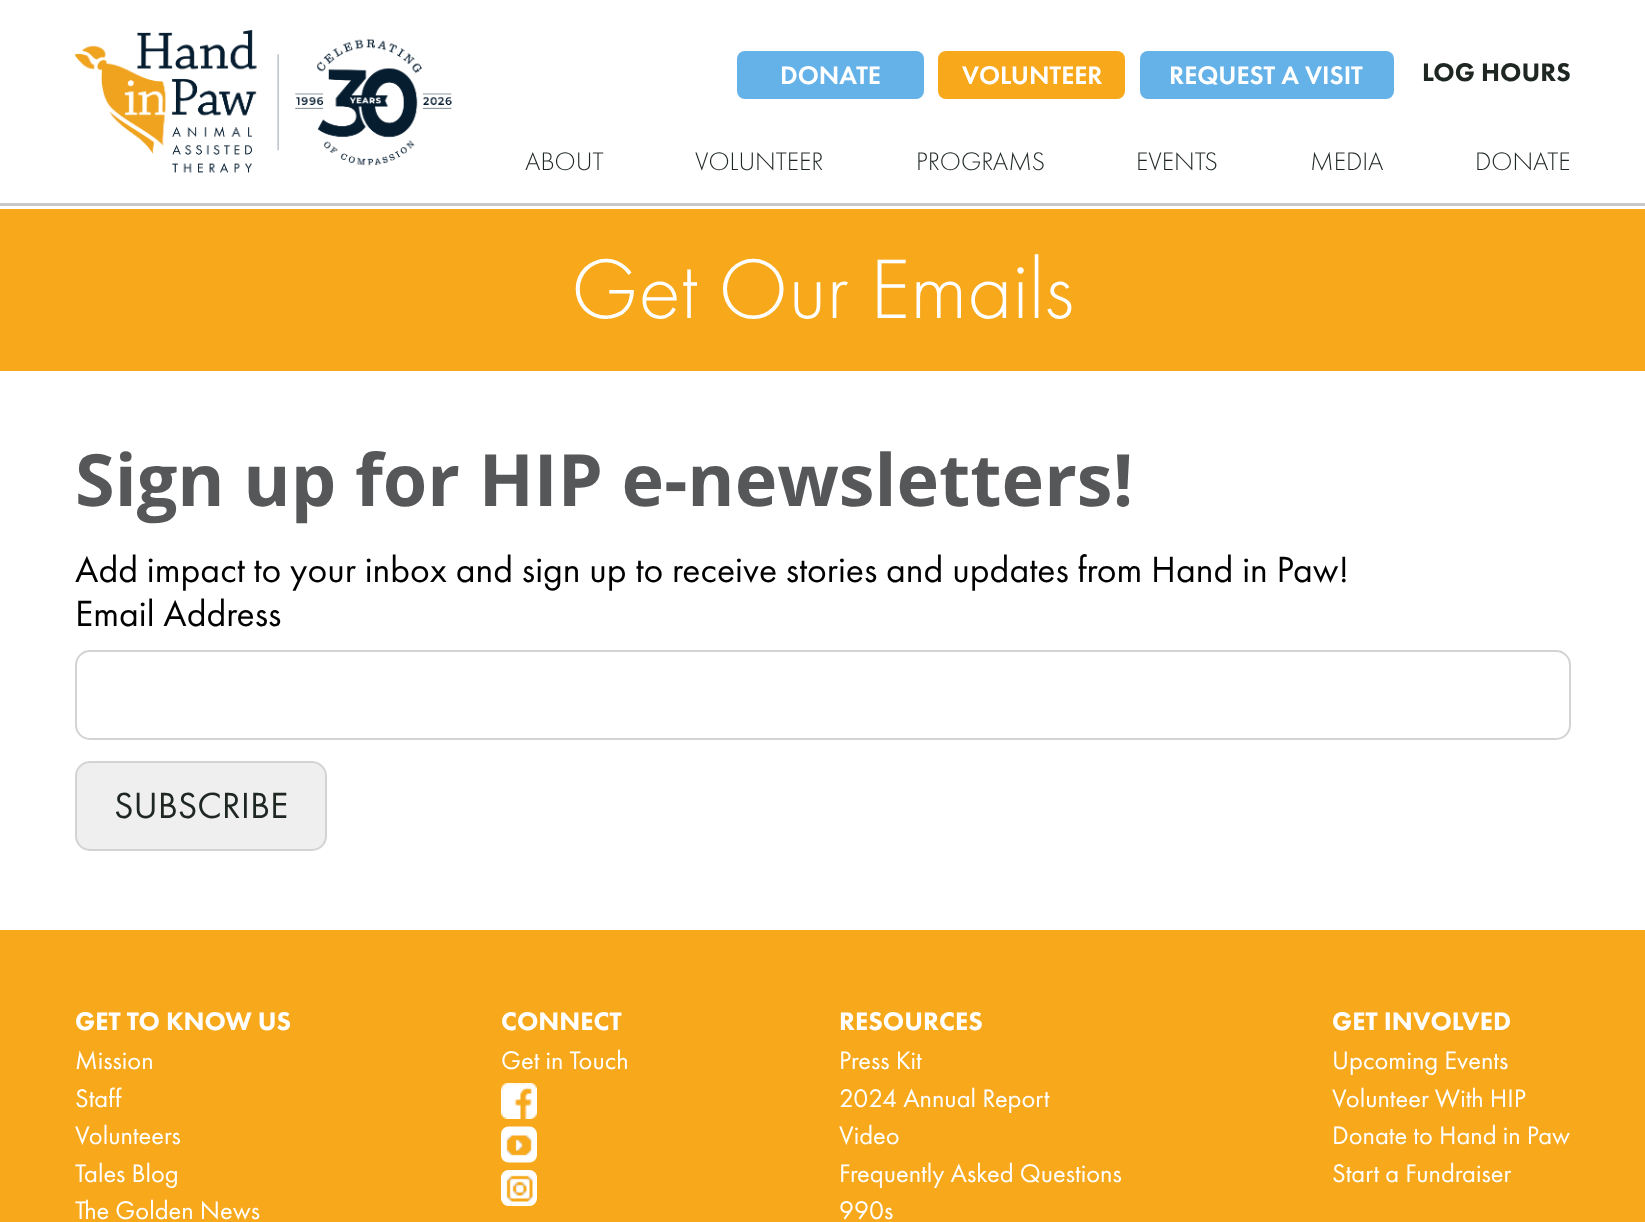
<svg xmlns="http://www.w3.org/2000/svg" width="1645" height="1222">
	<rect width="100%" height="100%" fill="#FFFFFF" />
	<rect x="0" y="203" width="1645" height="3" fill="#C9C8C8" />
	<image x="75" y="30" width="377" height="143" href="assets/img1.png" />
	<rect x="737" y="51" width="187" height="48" rx="8" fill="#65B2E8" />
	<text x="780" y="84" font-family="Futura PT" font-size="26.4" font-weight="500" fill="#FFFFFF">DONATE</text>
	<rect x="938" y="51" width="187" height="48" rx="8" fill="#F7A81B" />
	<text x="962" y="84" font-family="Futura PT" font-size="26.4" font-weight="500" fill="#FFFFFF">VOLUNTEER</text>
	<rect x="1140" y="51" width="254" height="48" rx="8" fill="#65B2E8" />
	<text x="1169" y="84" font-family="Futura PT" font-size="26.4" font-weight="500" fill="#FFFFFF">REQUEST A VISIT</text>
	<text x="1422" y="81" font-family="Futura PT" font-size="26.4" font-weight="900" fill="#1E2722">LOG HOURS</text>
	<g font-family="Futura PT" font-size="26.4" font-weight="300" fill="#1E2722">
		<text x="525" y="170">ABOUT</text>
		<text x="695" y="170">VOLUNTEER</text>
		<text x="916" y="170">PROGRAMS</text>
		<text x="1136" y="170">EVENTS</text>
		<text x="1310" y="170">MEDIA</text>
		<text x="1475" y="170">DONATE</text>
	</g>
	<rect x="0" y="209" width="1645" height="162" fill="#F7A81B" />
	<text x="571" y="318" font-family="Futura PT" font-size="87.5" font-weight="300" fill="#FFFFFF">Get Our Emails</text>
	<text x="75" y="506" font-family="Open Sans" font-size="72" font-weight="700" fill="#555759">Sign up for HIP e-newsletters!</text>
	<g font-family="Futura PT" font-size="37.7" fill="#000000">
		<text x="75" y="582">Add impact to your inbox and sign up to receive stories and updates from Hand in Paw!</text>
		<text x="75" y="626">Email Address</text>
	</g>
	<rect x="76" y="651" width="1494" height="88" rx="14" fill="none" stroke="#D3D3D3" stroke-width="2" />
	<rect x="76" y="762" width="250" height="88" rx="14" fill="#EFEFEF" stroke="#D3D3D3" stroke-width="2" />
	<text x="114" y="818" font-family="Futura PT" font-size="37.7" fill="#1E2722">SUBSCRIBE</text>
	<rect x="0" y="930" width="1645" height="292" fill="#F7A81B" />
	<text x="75" y="1030" font-family="Futura PT" font-size="26.4" font-weight="900" fill="#FFFFFF">GET TO KNOW US</text>
	<g font-family="Futura PT" font-size="26.4" fill="#FFFFFF">
		<text x="75" y="1069">Mission</text>
		<text x="75" y="1107">Staff</text>
		<text x="75" y="1144">Volunteers</text>
		<text x="75" y="1182">Tales Blog</text>
		<text x="75" y="1219">The Golden News</text>
	</g>
	<text x="501" y="1030" font-family="Futura PT" font-size="26.4" font-weight="900" fill="#FFFFFF">CONNECT</text>
	<text x="501" y="1069" font-family="Futura PT" font-size="26.4" fill="#FFFFFF">Get in Touch</text>
	<image x="501" y="1083" width="36" height="36" href="assets/img2.png" />
	<image x="501" y="1126" width="36" height="37" href="assets/img3.png" />
	<image x="501" y="1170" width="36" height="36" href="assets/img4.png" />
	<text x="839" y="1030" font-family="Futura PT" font-size="26.4" font-weight="900" fill="#FFFFFF">RESOURCES</text>
	<g font-family="Futura PT" font-size="26.4" fill="#FFFFFF">
		<text x="839" y="1069">Press Kit</text>
		<text x="839" y="1107">2024 Annual Report</text>
		<text x="839" y="1144">Video</text>
		<text x="839" y="1182">Frequently Asked Questions</text>
		<text x="839" y="1219">990s</text>
	</g>
	<text x="1332" y="1030" font-family="Futura PT" font-size="26.4" font-weight="900" fill="#FFFFFF">GET INVOLVED</text>
	<g font-family="Futura PT" font-size="26.4" fill="#FFFFFF">
		<text x="1332" y="1069">Upcoming Events</text>
		<text x="1332" y="1107">Volunteer With HIP</text>
		<text x="1332" y="1144">Donate to Hand in Paw</text>
		<text x="1332" y="1182">Start a Fundraiser</text>
	</g>
</svg>
